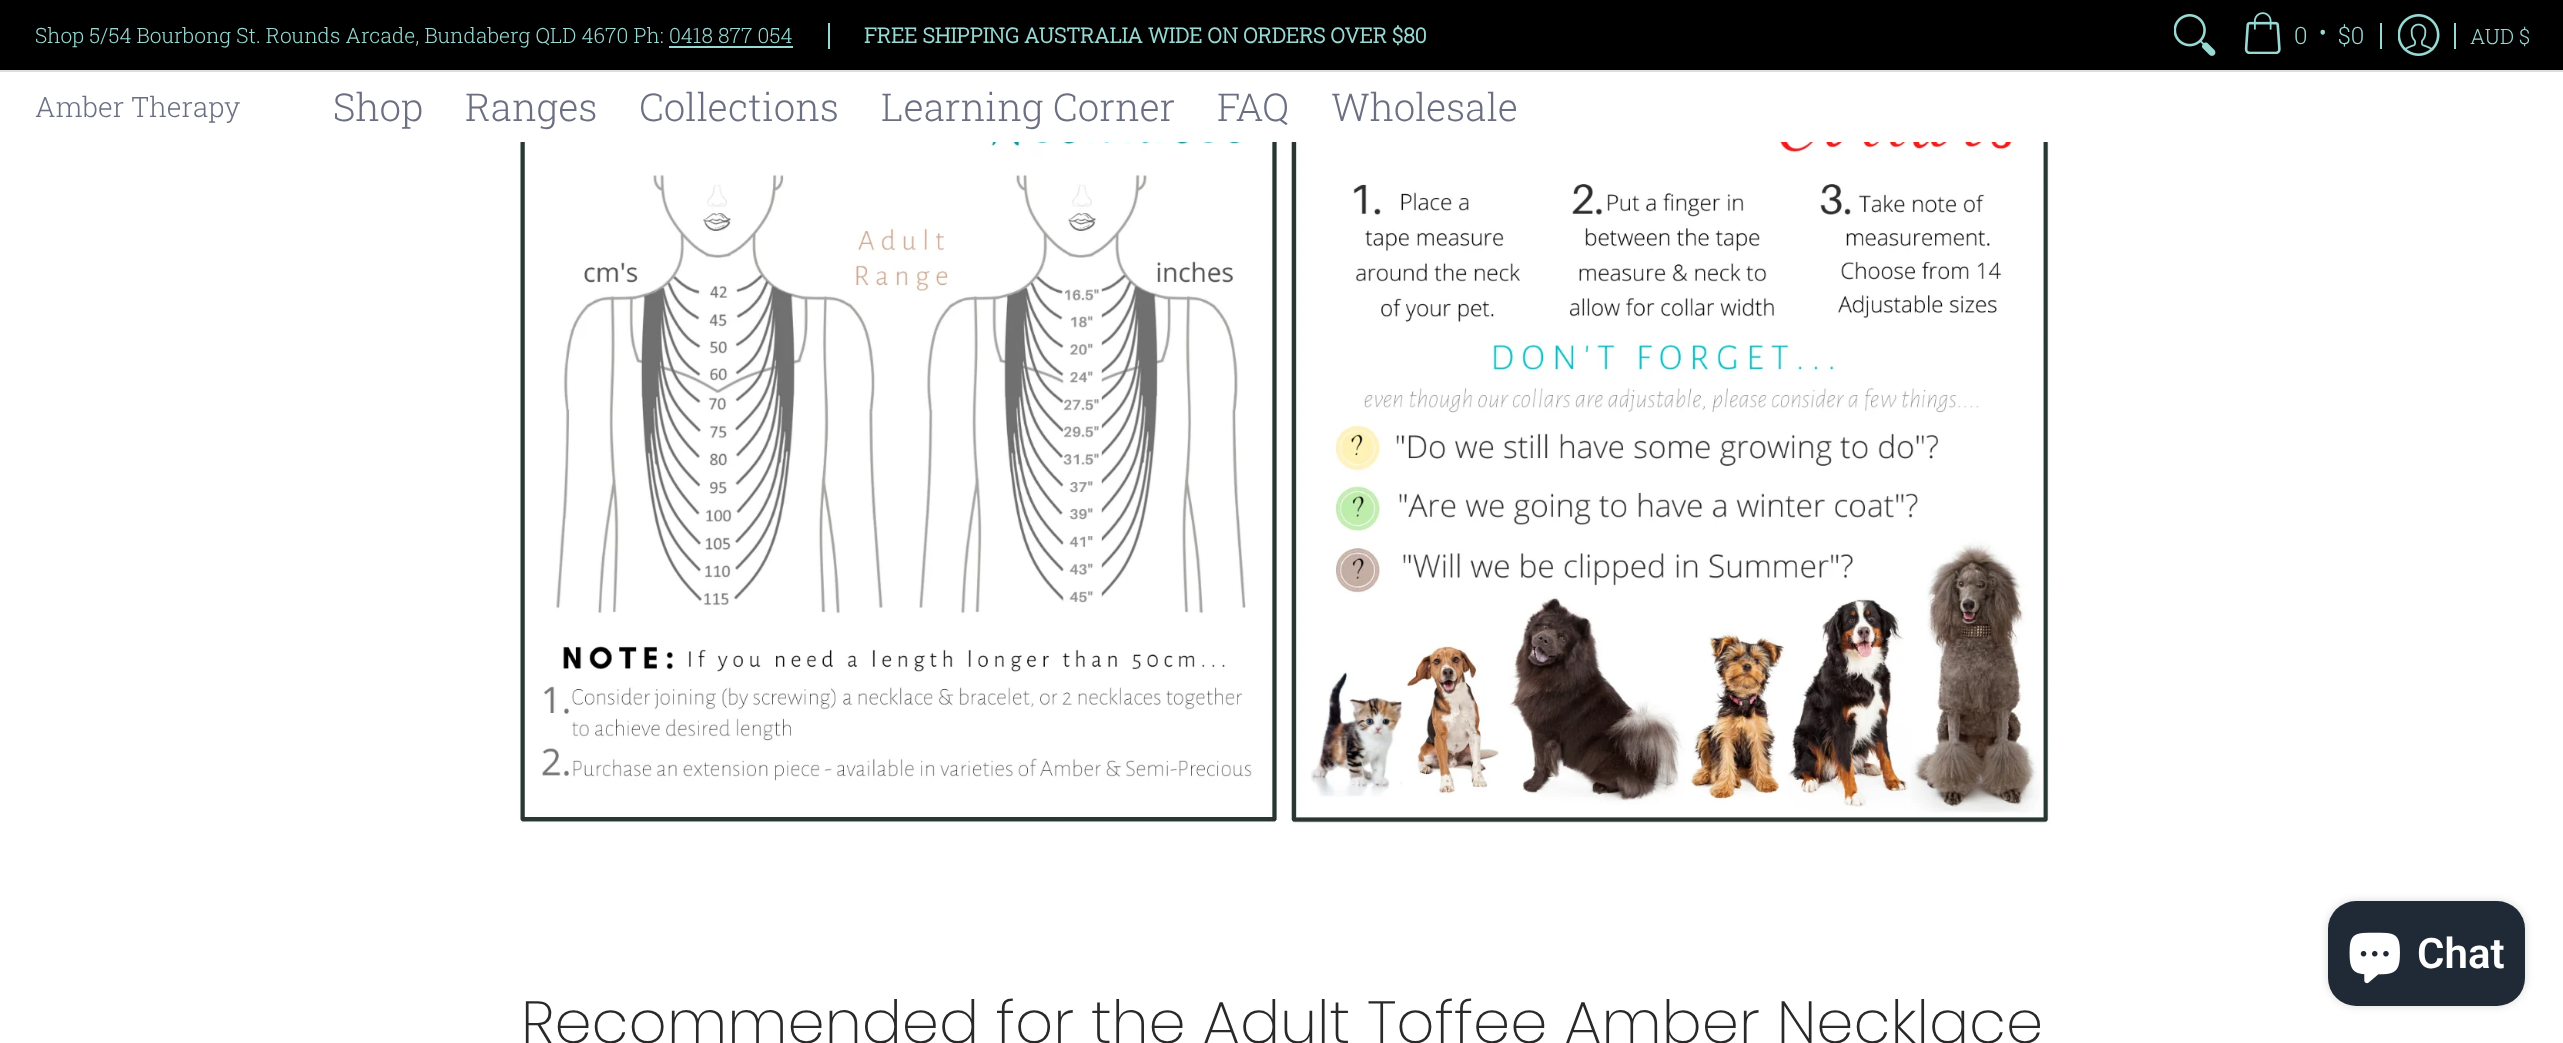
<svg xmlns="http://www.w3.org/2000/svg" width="2563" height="1043">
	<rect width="100%" height="100%" fill="#FFFFFF" />
	<rect x="0" y="0" width="2563" height="70" fill="#000000" />
	<rect x="0" y="70" width="2563" height="2" fill="#DEDEDE" />
	<text x="35" y="43" font-family="Roboto Slab" font-size="21" font-weight="300" fill="#98D9D3">Shop 5/54 Bourbong St. Rounds Arcade, Bundaberg QLD 4670 Ph: 0418 877 054</text>
	<rect x="669" y="46" width="124" height="2" fill="#98D9D3" />
	<rect x="828" y="23" width="2" height="26" fill="#98D9D3" />
	<text x="864" y="43" font-family="Roboto Slab" font-size="21" font-weight="700" fill="#98D9D3">FREE SHIPPING AUSTRALIA WIDE ON ORDERS OVER $80</text>
	<image x="2174" y="14" width="42" height="42" href="assets/img1.png" />
	<image x="2244" y="12" width="37" height="42" href="assets/img2.png" />
	<g font-family="Roboto Slab" font-size="24" font-weight="300" fill="#98D9D3">
		<text x="2294" y="44">0</text>
		<text x="2319" y="41">•</text>
		<text x="2338" y="44">$0</text>
	</g>
	<rect x="2380" y="23" width="2" height="26" fill="#98D9D3" />
	<image x="2398" y="14" width="42" height="42" href="assets/img3.png" />
	<rect x="2454" y="23" width="2" height="26" fill="#98D9D3" />
	<text x="2470" y="44" font-family="Roboto Slab" font-size="21" font-weight="300" fill="#98D9D3">AUD $</text>
	<text x="35" y="117" font-family="Roboto Slab" font-size="28" font-weight="300" fill="#6B6F81">Amber Therapy</text>
	<g font-family="Roboto Slab" font-size="38.5" font-weight="300" fill="#6B6F81">
		<text x="333" y="121">Shop</text>
		<text x="465" y="121">Ranges</text>
		<text x="639" y="121">Collections</text>
		<text x="881" y="121">Learning Corner</text>
		<text x="1217" y="121">FAQ</text>
		<text x="1331" y="121">Wholesale</text>
	</g>
	<rect x="2328" y="901" width="197" height="105" rx="28" fill="#000000" fill-opacity="0.15" filter="blur(4.5px)" />
	<rect x="2328" y="901" width="197" height="105" rx="28" fill="#202A36" />
	<image x="2349" y="932" width="51" height="52" href="assets/img4.png" />
	<text x="2417" y="968" font-family="Roboto" font-size="42" font-weight="600" fill="#FFFFFF">Chat</text>
	<image x="519" y="142" width="1532" height="682" href="assets/img5.png" />
	<text x="521" y="1043" font-family="Poppins" font-size="59.5" font-weight="300" fill="#292929">Recommended for the Adult Toffee Amber Necklace</text>
</svg>
